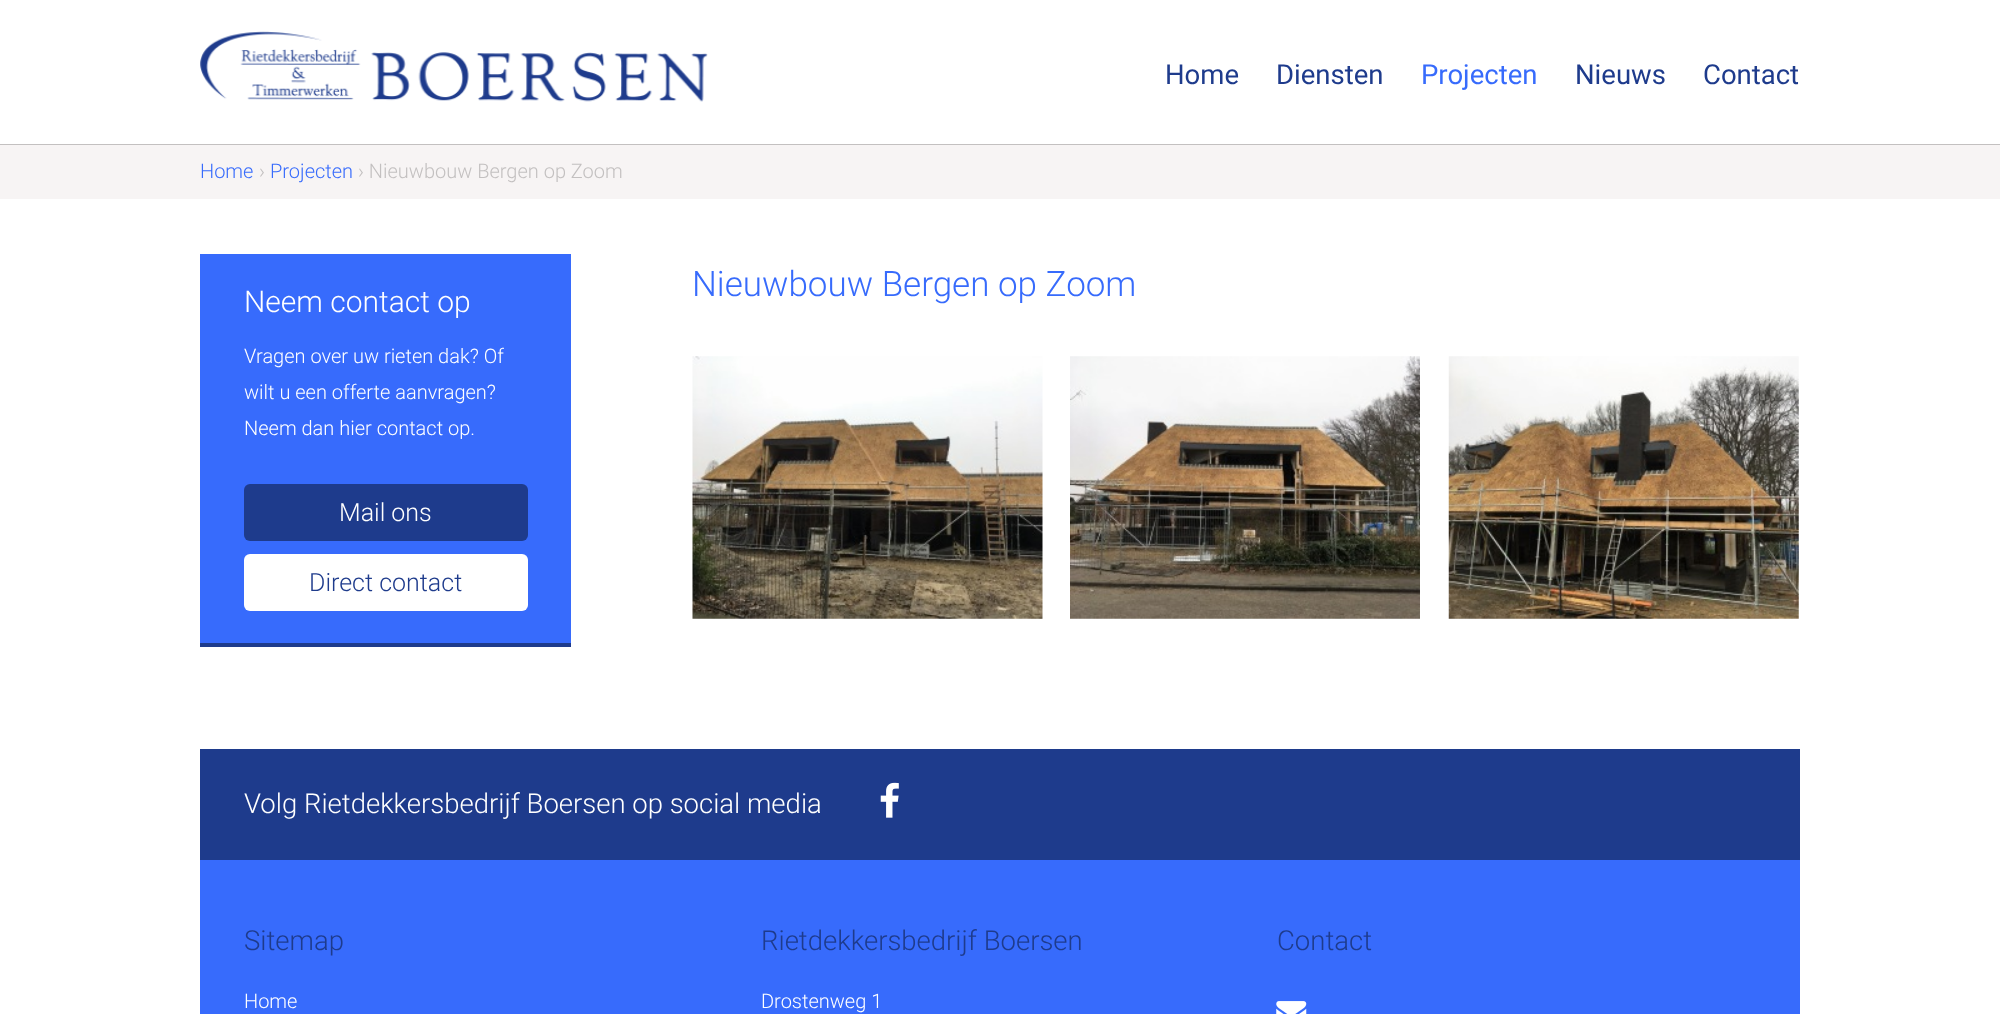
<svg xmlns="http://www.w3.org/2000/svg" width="2000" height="1014">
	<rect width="100%" height="100%" fill="#FFFFFF" />
	<image x="200" y="31" width="508" height="71" href="assets/img1.png" />
	<g font-family="Roboto" font-size="27.5" fill="#1E3B8C">
		<text x="1165" y="84">Home</text>
		<text x="1276" y="84">Diensten</text>
	</g>
	<text x="1421" y="84" font-family="Roboto" font-size="27.5" fill="#376BFC">Projecten</text>
	<g font-family="Roboto" font-size="27.5" fill="#1E3B8C">
		<text x="1575" y="84">Nieuws</text>
		<text x="1703" y="84">Contact</text>
	</g>
	<rect x="0" y="145" width="2000" height="54" fill="#F7F4F4" />
	<rect x="0" y="144" width="2000" height="1" fill="#C3C0C0" />
	<text x="200" y="178" font-family="Roboto" font-size="20" font-weight="300" fill="#376BFC">Home</text>
	<text x="259" y="178" font-family="Roboto" font-size="20" font-weight="300" fill="#C3C0C0">›</text>
	<text x="270" y="178" font-family="Roboto" font-size="20" font-weight="300" fill="#376BFC">Projecten</text>
	<text x="358" y="178" font-family="Roboto" font-size="20" font-weight="300" fill="#C3C0C0">› Nieuwbouw Bergen op Zoom</text>
	<text x="692" y="296" font-family="Roboto" font-size="35" font-weight="300" fill="#376BFC">Nieuwbouw Bergen op Zoom</text>
	<image x="692" y="356" width="351" height="263" href="assets/img2.png" />
	<image x="1070" y="356" width="350" height="263" href="assets/img3.png" />
	<image x="1448" y="356" width="351" height="263" href="assets/img4.png" />
	<rect x="200" y="254" width="371" height="389" fill="#376BFC" />
	<rect x="200" y="643" width="371" height="4" fill="#1E3B8C" />
	<text x="244" y="312" font-family="Roboto" font-size="30" font-weight="300" fill="#FFFFFF">Neem contact op</text>
	<g font-family="Roboto" font-size="20" font-weight="300" fill="#FFFFFF">
		<text x="244" y="363">Vragen over uw rieten dak? Of</text>
		<text x="244" y="399">wilt u een offerte aanvragen?</text>
		<text x="244" y="435">Neem dan hier contact op.</text>
	</g>
	<rect x="244" y="484" width="284" height="57" rx="6" fill="#1E3B8C" />
	<text x="339" y="521" font-family="Roboto" font-size="25" font-weight="300" fill="#FFFFFF">Mail ons</text>
	<rect x="244" y="554" width="284" height="57" rx="6" fill="#FFFFFF" />
	<text x="309" y="591" font-family="Roboto" font-size="25" font-weight="300" fill="#1E3B8C">Direct contact</text>
	<rect x="200" y="749" width="1600" height="111" fill="#1E3B8C" />
	<text x="244" y="813" font-family="Roboto" font-size="27.5" font-weight="300" fill="#FFFFFF">Volg Rietdekkersbedrijf Boersen op social media</text>
	<image x="880" y="782" width="19" height="36" href="assets/img5.png" />
	<rect x="200" y="860" width="1600" height="154" fill="#376BFC" />
	<text x="244" y="950" font-family="Roboto" font-size="27.5" font-weight="300" fill="#1E3B8C">Sitemap</text>
	<text x="244" y="1008" font-family="Roboto" font-size="20" font-weight="300" fill="#FFFFFF">Home</text>
	<text x="761" y="950" font-family="Roboto" font-size="27.5" font-weight="300" fill="#1E3B8C">Rietdekkersbedrijf Boersen</text>
	<text x="761" y="1008" font-family="Roboto" font-size="20" font-weight="300" fill="#FFFFFF">Drostenweg 1</text>
	<text x="1277" y="950" font-family="Roboto" font-size="27.5" font-weight="300" fill="#1E3B8C">Contact</text>
	<image x="1276" y="1001" width="31" height="13" href="assets/img6.png" />
</svg>
